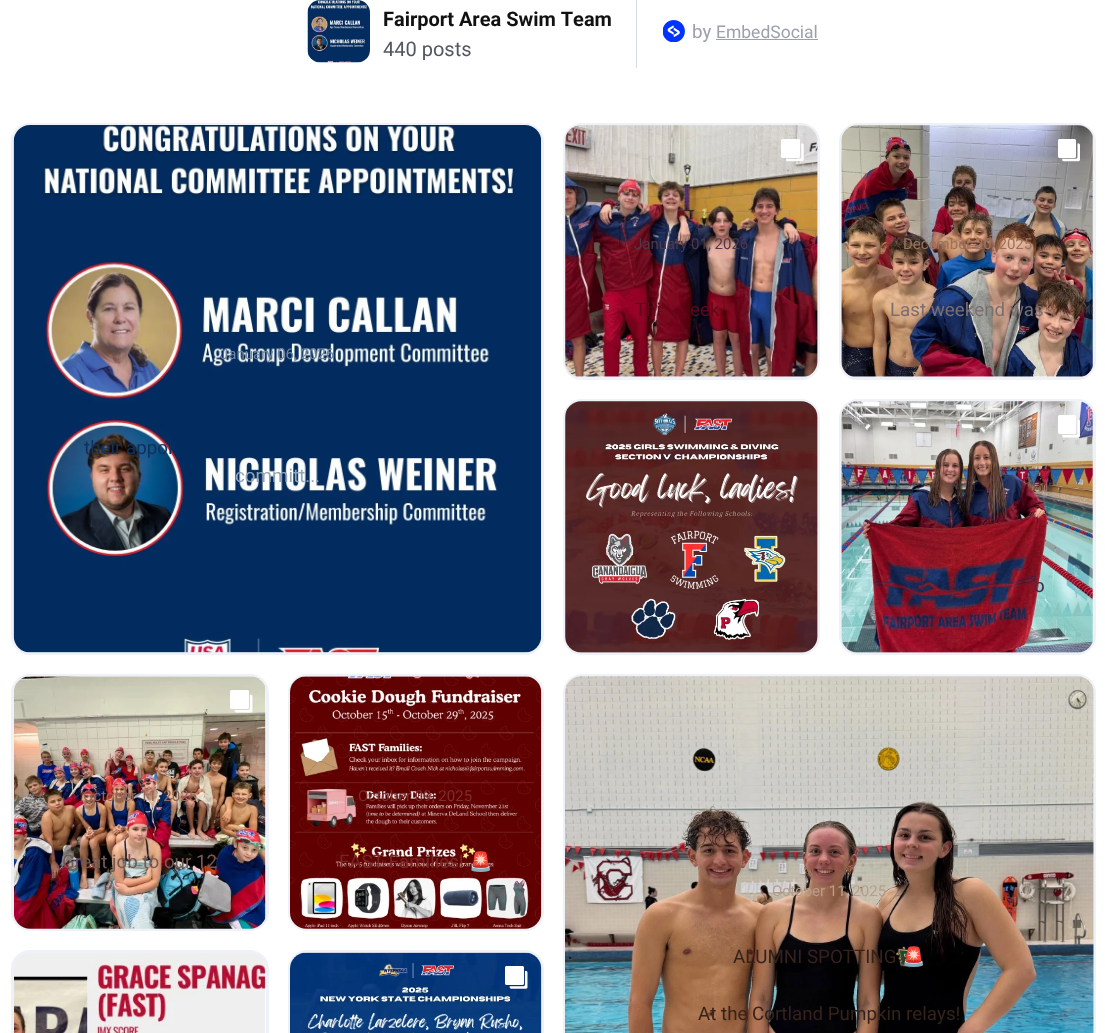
<svg xmlns="http://www.w3.org/2000/svg" width="1105" height="1033">
	<style>*{font-kerning:none!important;font-variant-ligatures:none!important}</style>
	<rect width="100%" height="100%" fill="#FFFFFF" />
	<image x="307" y="0" width="63" height="63" href="assets/img1.png" />
	<text x="383" y="26" font-family="Roboto" font-size="20" font-weight="700" fill="#111111">Fairport Area Swim Team</text>
	<text x="383" y="56" font-family="Roboto" font-size="20" fill="#525660">440 posts</text>
	<rect x="636" y="0" width="1" height="68" fill="#D6DAE4" />
	<image x="663" y="20" width="22" height="22" href="assets/img2.png" />
	<text x="692" y="38" font-family="Roboto" font-size="18.75" fill="#9CA0AC">by</text>
	<text x="716" y="38" font-family="Roboto" font-size="17.5" fill="#9CA0AC">EmbedSocial</text>
	<rect x="716" y="39" width="102" height="1" fill="#9CA0AC" />
	<rect x="564.5" y="124.5" width="254" height="254" rx="17.5" fill="none" stroke="#EEF1F7" stroke-width="3" />
	<image x="565" y="125" width="253" height="252" href="assets/img3.png" />
	<image x="781" y="139" width="23" height="23" href="assets/img4.png" />
	<text x="634" y="249" font-family="Roboto" font-size="15" fill="#50394B">January 01, 2026</text>
	<g font-family="Roboto" font-size="18.75" fill="#61081B">
		<text x="635" y="316">Thi</text>
		<text x="690" y="316">eek</text>
	</g>
	<rect x="840.5" y="124.5" width="254" height="254" rx="17.5" fill="none" stroke="#EEF1F7" stroke-width="3" />
	<image x="841" y="125" width="252" height="252" href="assets/img5.png" />
	<image x="1058" y="139" width="22" height="23" href="assets/img6.png" />
	<text x="903" y="249" font-family="Roboto" font-size="15" fill="#9B735D">December 20, 2025</text>
	<text x="890" y="316" font-family="Roboto" font-size="18.75" fill="#7A6E71">Last weekend was</text>
	<rect x="12.5" y="124.5" width="530" height="529" rx="17.5" fill="none" stroke="#EEF1F7" stroke-width="3" />
	<image x="13" y="125" width="529" height="528" href="assets/img7.png" />
	<text x="220" y="359" font-family="Roboto" font-size="15" fill="#6D859F">January 06, 2026</text>
	<text x="84" y="454" font-family="Roboto" font-size="18.75" fill="#0E315D">their appoi</text>
	<text x="235" y="482" font-family="Roboto" font-size="18.75" fill="#93A4B9">committ...</text>
	<rect x="564.5" y="400.5" width="254" height="253" rx="17.5" fill="none" stroke="#EEF1F7" stroke-width="3" />
	<image x="565" y="401" width="253" height="252" href="assets/img8.png" />
	<rect x="840.5" y="400.5" width="254" height="253" rx="17.5" fill="none" stroke="#EEF1F7" stroke-width="3" />
	<image x="841" y="401" width="252" height="252" href="assets/img9.png" />
	<image x="1058" y="415" width="22" height="23" href="assets/img10.png" />
	<text x="1034" y="592" font-family="Roboto" font-size="18.75" fill="#4D2845">o</text>
	<rect x="12.5" y="675.5" width="255" height="254" rx="17.5" fill="none" stroke="#EEF1F7" stroke-width="3" />
	<image x="14" y="676" width="252" height="253" href="assets/img11.png" />
	<image x="230" y="690" width="23" height="23" href="assets/img12.png" />
	<text x="83" y="801" font-family="Roboto" font-size="15" fill="#8F655C">October 11, 2025</text>
	<text x="62" y="868" font-family="Roboto" font-size="18.75" fill="#735B54">Great job to our 12</text>
	<rect x="289.5" y="675.5" width="253" height="254" rx="17.5" fill="none" stroke="#EEF1F7" stroke-width="3" />
	<image x="290" y="676" width="252" height="253" href="assets/img13.png" />
	<text x="358" y="801" font-family="Roboto" font-size="15" fill="#7B2D2D">October 09, 2025</text>
	<text x="339" y="868" font-family="Roboto" font-size="18.75" fill="#772625">FAST Families!</text>
	<text x="469" y="868" font-family="Noto Color Emoji" font-size="18.75" fill="#6D1513">🚨</text>
	<rect x="12.5" y="951.5" width="255" height="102" rx="17.5" fill="none" stroke="#EEF1F7" stroke-width="3" />
	<image x="14" y="953" width="252" height="80" href="assets/img14.png" />
	<rect x="289.5" y="951.5" width="253" height="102" rx="17.5" fill="none" stroke="#EEF1F7" stroke-width="3" />
	<image x="290" y="952" width="252" height="81" href="assets/img15.png" />
	<image x="505" y="966" width="23" height="23" href="assets/img16.png" />
	<rect x="564.5" y="675.5" width="530" height="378" rx="17.5" fill="none" stroke="#EEF1F7" stroke-width="3" />
	<image x="565" y="676" width="529" height="357" href="assets/img17.png" />
	<text x="772" y="896" font-family="Roboto" font-size="15" fill="#B49F8E">October 11, 2025</text>
	<text x="733" y="963" font-family="Roboto" font-size="18.75" fill="#34221B">ALUMNI SPOTTING</text>
	<text x="902" y="963" font-family="Noto Color Emoji" font-size="18.75" fill="#1F2218">🚨</text>
	<text x="698" y="1020" font-family="Roboto" font-size="18.75" fill="#34221B">At the Cortland Pumpkin relays!</text>
</svg>
